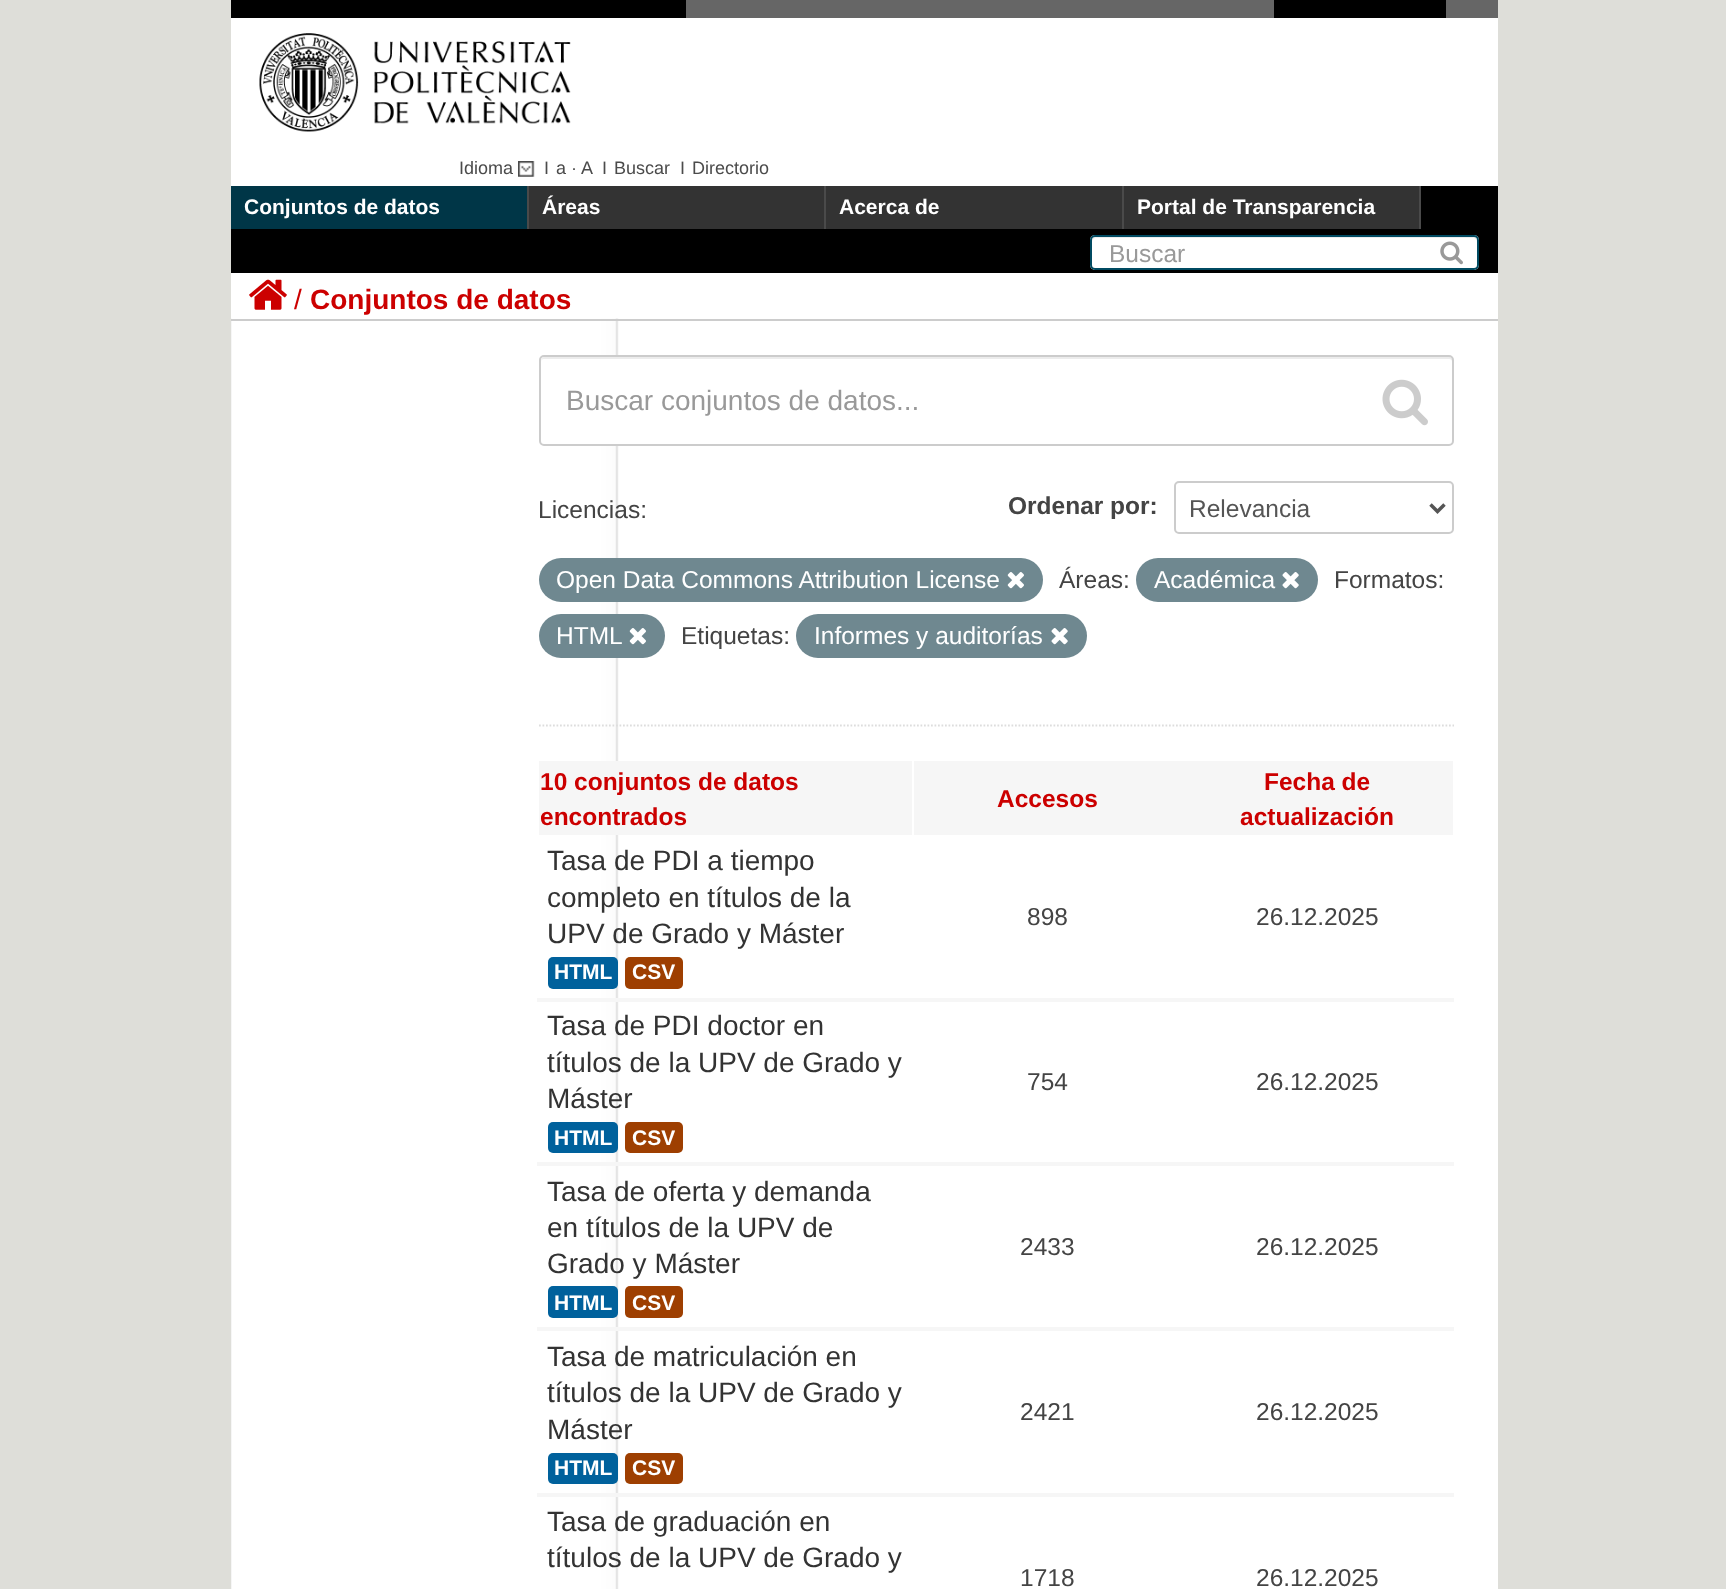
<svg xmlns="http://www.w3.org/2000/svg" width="1726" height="1589">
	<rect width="100%" height="100%" fill="#DEDED9" />
	<rect x="686" y="0" width="812" height="18" fill="#666666" />
	<rect x="231" y="0" width="455" height="18" fill="#000000" />
	<rect x="1274" y="0" width="172" height="18" fill="#000000" />
	<rect x="231" y="18" width="1267" height="168" fill="#FFFFFF" />
	<image x="259" y="33" width="312" height="99" href="assets/img1.png" />
	<text x="459" y="174" font-family="Liberation Sans" font-size="18" fill="#4B4B4B">Idioma</text>
	<image x="518" y="161" width="17" height="16" href="assets/img2.png" />
	<g font-family="Liberation Sans" font-size="18" fill="#4B4B4B">
		<text x="544" y="174">I</text>
		<text x="556" y="174">a</text>
		<text x="571" y="174">·</text>
		<text x="581" y="174">A</text>
		<text x="602" y="174">I</text>
		<text x="614" y="174">Buscar</text>
		<text x="680" y="174">I</text>
		<text x="692" y="174">Directorio</text>
	</g>
	<rect x="231" y="186" width="1267" height="87" fill="#000000" />
	<rect x="231" y="186" width="296" height="43" fill="#003647" />
	<rect x="527" y="186" width="2" height="43" fill="#4A4A4A" />
	<text x="244" y="214" font-family="Liberation Sans" font-size="21" font-weight="700" fill="#FFFFFF">Conjuntos de datos</text>
	<rect x="529" y="186" width="295" height="43" fill="#333333" />
	<rect x="824" y="186" width="2" height="43" fill="#4A4A4A" />
	<text x="542" y="214" font-family="Liberation Sans" font-size="21" font-weight="700" fill="#FFFFFF">Áreas</text>
	<rect x="826" y="186" width="296" height="43" fill="#333333" />
	<rect x="1122" y="186" width="2" height="43" fill="#4A4A4A" />
	<text x="839" y="214" font-family="Liberation Sans" font-size="21" font-weight="700" fill="#FFFFFF">Acerca de</text>
	<rect x="1124" y="186" width="295" height="43" fill="#333333" />
	<rect x="1419" y="186" width="2" height="43" fill="#4A4A4A" />
	<text x="1137" y="214" font-family="Liberation Sans" font-size="21" font-weight="700" fill="#FFFFFF">Portal de Transparencia</text>
	<rect x="1090" y="235" width="389" height="35" rx="5" fill="#FFFFFF" />
	<path d="M1096 238H1474C1475 238 1477 240 1477 242V240C1477 238 1475 236 1473 236H1096C1094 236 1092 238 1092 240V242C1092 240 1094 238 1096 238Z" fill="#ECECEC" />
	<rect x="1091" y="236" width="387" height="33" rx="4" fill="none" stroke="#004A61" stroke-width="2" />
	<text x="1109" y="262" font-family="Liberation Sans" font-size="24.5" fill="#999999">Buscar</text>
	<image x="1440" y="241" width="23" height="24" href="assets/img3.png" />
	<rect x="231" y="273" width="1267" height="1316" fill="#FFFFFF" />
	<image x="249" y="279" width="38" height="31" href="assets/img4.png" />
	<text x="294" y="309" font-family="Liberation Sans" font-size="28" fill="#CC0000">/</text>
	<text x="310" y="309" font-family="Liberation Sans" font-size="28" font-weight="700" fill="#CC0000">Conjuntos de datos</text>
	<image x="231" y="318" width="388" height="1271" href="assets/img5.png" />
	<rect x="231" y="319" width="1267" height="2" fill="#CCCCCC" />
	<path d="M539 725.5H1454" fill="none" stroke="#DDDDDD" stroke-width="1.8" stroke-dasharray="1.75 1.75" />
	<rect x="539" y="355" width="915" height="91" rx="5" fill="#FFFFFF" />
	<path d="M544 359H1449C1451 359 1452 360 1452 362V444C1453 443 1453 442 1453 441V361C1453 359 1451 357 1449 357H545C543 357 541 359 541 361V362C541 360 542 359 544 359Z" fill="#ECECEC" />
	<rect x="540" y="356" width="913" height="89" rx="4" fill="none" stroke="#CCCCCC" stroke-width="2" />
	<text x="566" y="410" font-family="Liberation Sans" font-size="28" fill="#999999">Buscar conjuntos de datos...</text>
	<image x="1382" y="379" width="46" height="47" href="assets/img6.png" />
	<text x="1008" y="514" font-family="Liberation Sans" font-size="24.5" font-weight="700" fill="#444444">Ordenar por:</text>
	<rect x="1175" y="482" width="278" height="51" rx="4" fill="none" stroke="#CCCCCC" stroke-width="2" />
	<path d="M1430.5 504.5L1437.5 511.5L1444.5 504.5" fill="none" stroke="#555555" stroke-width="3.5" />
	<text x="1189" y="517" font-family="Liberation Sans" font-size="24.5" fill="#555555">Relevancia</text>
	<text x="538" y="518" font-family="Liberation Sans" font-size="24.5" fill="#444444">Licencias:</text>
	<rect x="539" y="558" width="504" height="44" rx="22" fill="#6F8890" />
	<text x="556" y="588" font-family="Liberation Sans" font-size="24.5" fill="#FFFFFF">Open Data Commons Attribution License</text>
	<image x="1007" y="572" width="17" height="17" href="assets/img7.png" />
	<text x="1059" y="588" font-family="Liberation Sans" font-size="24.5" fill="#444444">Áreas:</text>
	<rect x="1136" y="558" width="182" height="44" rx="22" fill="#6F8890" />
	<text x="1154" y="588" font-family="Liberation Sans" font-size="24.5" fill="#FFFFFF">Académica</text>
	<image x="1282" y="572" width="17" height="17" href="assets/img8.png" />
	<text x="1334" y="588" font-family="Liberation Sans" font-size="24.5" fill="#444444">Formatos:</text>
	<rect x="539" y="614" width="126" height="44" rx="22" fill="#6F8890" />
	<text x="556" y="644" font-family="Liberation Sans" font-size="24.5" fill="#FFFFFF">HTML</text>
	<image x="629" y="628" width="17" height="17" href="assets/img7.png" />
	<text x="681" y="644" font-family="Liberation Sans" font-size="24.5" fill="#444444">Etiquetas:</text>
	<rect x="796" y="614" width="291" height="44" rx="22" fill="#6F8890" />
	<text x="814" y="644" font-family="Liberation Sans" font-size="24.5" fill="#FFFFFF">Informes y auditorías</text>
	<image x="1051" y="628" width="17" height="17" href="assets/img8.png" />
	<rect x="539" y="761" width="373" height="74" fill="#F6F6F6" />
	<g font-family="Liberation Sans" font-size="24.5" font-weight="700" fill="#CC0000">
		<text x="540" y="790">10 conjuntos de datos</text>
		<text x="540" y="825">encontrados</text>
	</g>
	<rect x="914" y="761" width="539" height="74" fill="#F6F6F6" />
	<g font-family="Liberation Sans" font-size="24.5" font-weight="700" fill="#CC0000">
		<text x="997" y="807">Accesos</text>
		<text x="1264" y="790">Fecha de</text>
		<text x="1240" y="825">actualización</text>
	</g>
	<g font-family="Liberation Sans" font-size="28" fill="#333333">
		<text x="547" y="870">Tasa de PDI a tiempo</text>
		<text x="547" y="907">completo en títulos de la</text>
		<text x="547" y="943">UPV de Grado y Máster</text>
	</g>
	<rect x="548" y="957" width="70" height="32" rx="5" fill="#00619C" />
	<text x="554" y="979" font-family="Liberation Sans" font-size="21" font-weight="700" fill="#FFFFFF">HTML</text>
	<rect x="625" y="957" width="58" height="32" rx="5" fill="#9E3F01" />
	<text x="632" y="979" font-family="Liberation Sans" font-size="21" font-weight="700" fill="#FFFFFF">CSV</text>
	<text x="1027" y="925" font-family="Liberation Sans" font-size="24.5" fill="#444444">898</text>
	<rect x="537" y="998" width="917" height="4" fill="#F6F6F6" />
	<text x="1256" y="925" font-family="Liberation Sans" font-size="24.5" fill="#444444">26.12.2025</text>
	<g font-family="Liberation Sans" font-size="28" fill="#333333">
		<text x="547" y="1035">Tasa de PDI doctor en</text>
		<text x="547" y="1072">títulos de la UPV de Grado y</text>
		<text x="547" y="1108">Máster</text>
	</g>
	<rect x="548" y="1122" width="70" height="31" rx="5" fill="#00619C" />
	<text x="554" y="1145" font-family="Liberation Sans" font-size="21" font-weight="700" fill="#FFFFFF">HTML</text>
	<rect x="625" y="1122" width="58" height="31" rx="5" fill="#9E3F01" />
	<text x="632" y="1145" font-family="Liberation Sans" font-size="21" font-weight="700" fill="#FFFFFF">CSV</text>
	<text x="1027" y="1090" font-family="Liberation Sans" font-size="24.5" fill="#444444">754</text>
	<rect x="537" y="1162" width="917" height="4" fill="#F6F6F6" />
	<text x="1256" y="1090" font-family="Liberation Sans" font-size="24.5" fill="#444444">26.12.2025</text>
	<g font-family="Liberation Sans" font-size="28" fill="#333333">
		<text x="547" y="1201">Tasa de oferta y demanda</text>
		<text x="547" y="1237">en títulos de la UPV de</text>
		<text x="547" y="1273">Grado y Máster</text>
	</g>
	<rect x="548" y="1286" width="70" height="32" rx="5" fill="#00619C" />
	<text x="554" y="1310" font-family="Liberation Sans" font-size="21" font-weight="700" fill="#FFFFFF">HTML</text>
	<rect x="625" y="1286" width="58" height="32" rx="5" fill="#9E3F01" />
	<text x="632" y="1310" font-family="Liberation Sans" font-size="21" font-weight="700" fill="#FFFFFF">CSV</text>
	<text x="1020" y="1255" font-family="Liberation Sans" font-size="24.5" fill="#444444">2433</text>
	<rect x="537" y="1327" width="917" height="4" fill="#F6F6F6" />
	<text x="1256" y="1255" font-family="Liberation Sans" font-size="24.5" fill="#444444">26.12.2025</text>
	<g font-family="Liberation Sans" font-size="28" fill="#333333">
		<text x="547" y="1366">Tasa de matriculación en</text>
		<text x="547" y="1402">títulos de la UPV de Grado y</text>
		<text x="547" y="1439">Máster</text>
	</g>
	<rect x="548" y="1453" width="70" height="31" rx="5" fill="#00619C" />
	<text x="554" y="1475" font-family="Liberation Sans" font-size="21" font-weight="700" fill="#FFFFFF">HTML</text>
	<rect x="625" y="1453" width="58" height="31" rx="5" fill="#9E3F01" />
	<text x="632" y="1475" font-family="Liberation Sans" font-size="21" font-weight="700" fill="#FFFFFF">CSV</text>
	<text x="1020" y="1420" font-family="Liberation Sans" font-size="24.5" fill="#444444">2421</text>
	<rect x="537" y="1493" width="917" height="4" fill="#F6F6F6" />
	<text x="1256" y="1420" font-family="Liberation Sans" font-size="24.5" fill="#444444">26.12.2025</text>
	<g font-family="Liberation Sans" font-size="28" fill="#333333">
		<text x="547" y="1531">Tasa de graduación en</text>
		<text x="547" y="1567">títulos de la UPV de Grado y</text>
	</g>
	<g font-family="Liberation Sans" font-size="24.5" fill="#444444">
		<text x="1020" y="1586">1718</text>
		<text x="1256" y="1586">26.12.2025</text>
	</g>
</svg>
